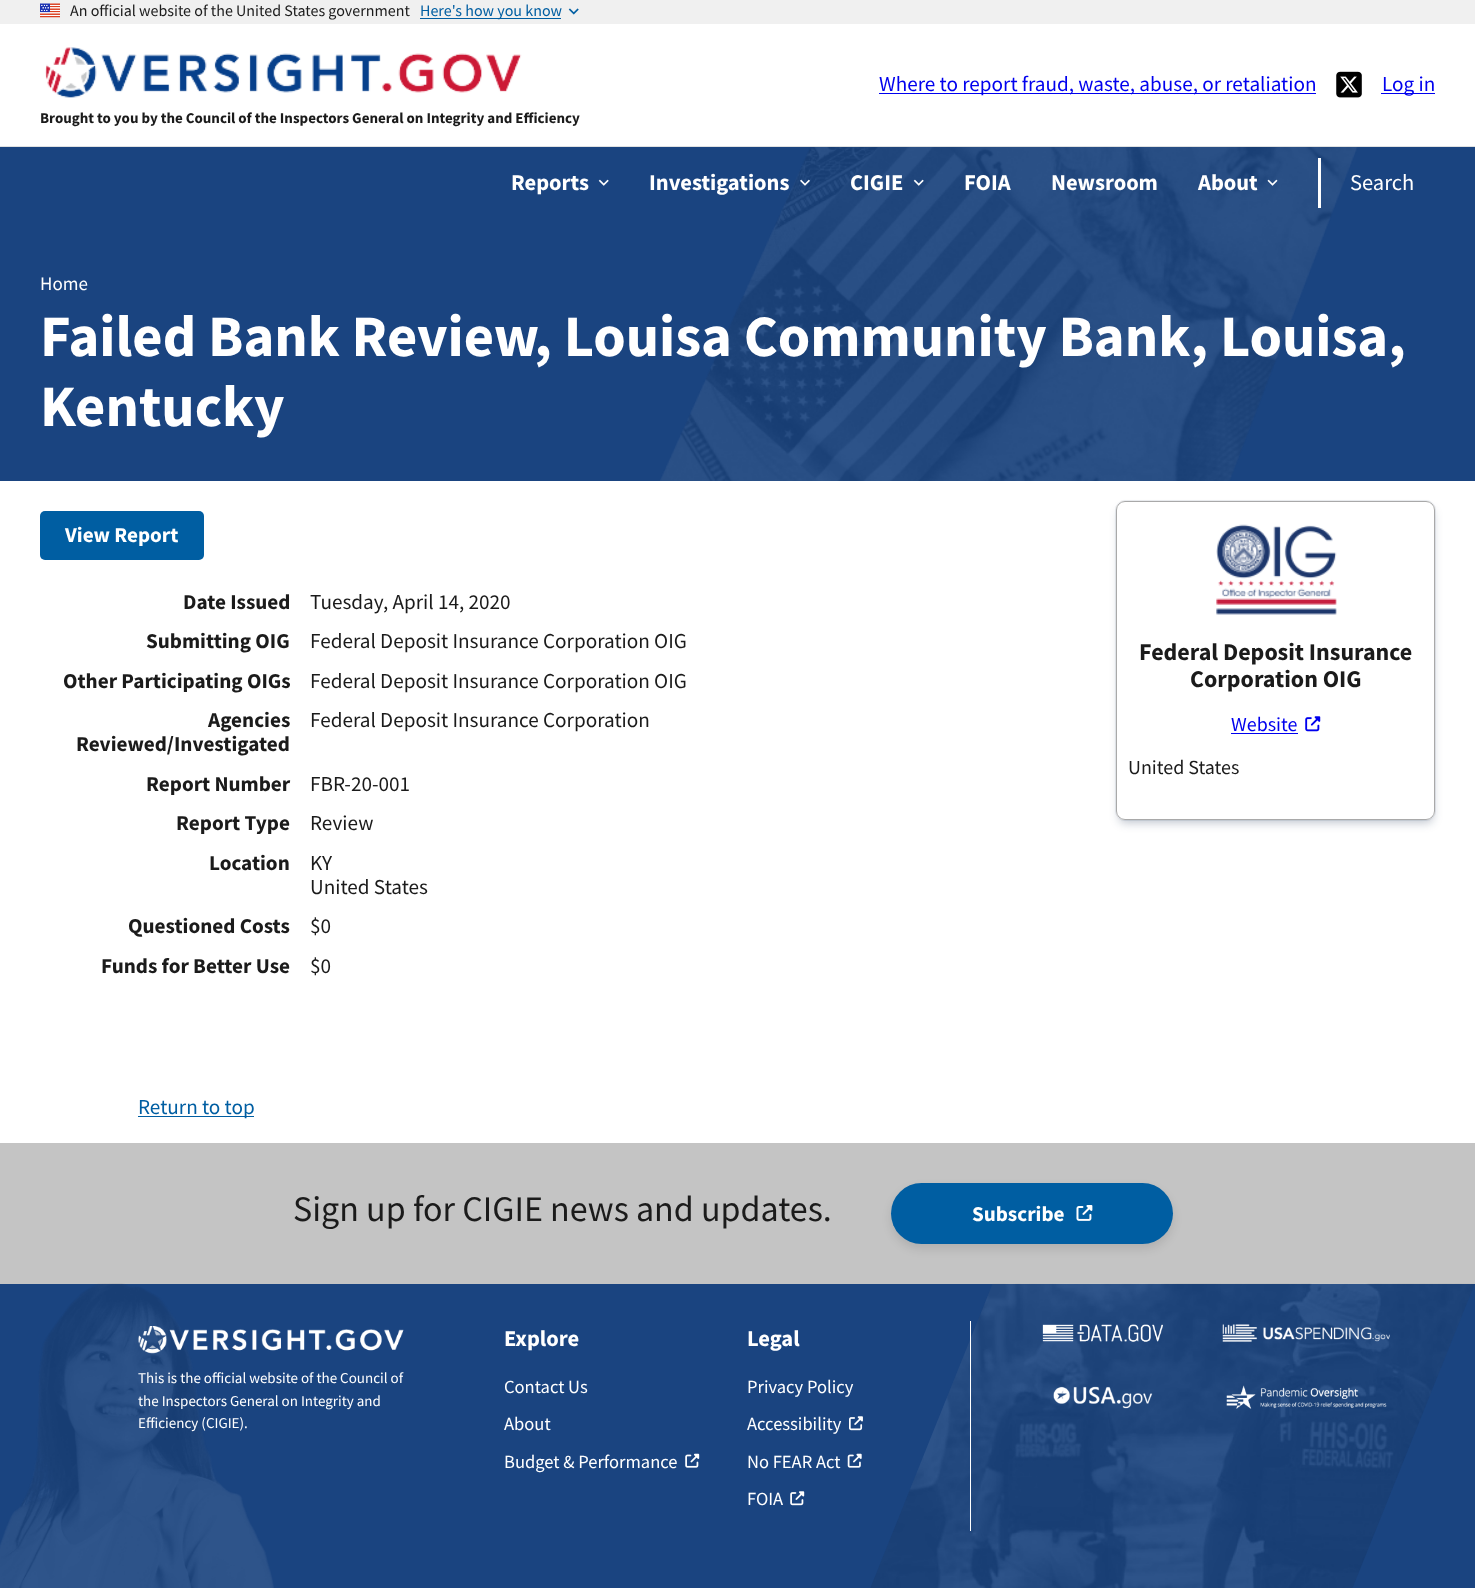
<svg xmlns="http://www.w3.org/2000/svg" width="1475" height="1588">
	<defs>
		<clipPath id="clip1"><path d="M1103 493H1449V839H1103ZM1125 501H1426C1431 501 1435 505 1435 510V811C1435 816 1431 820 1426 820H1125C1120 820 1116 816 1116 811V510C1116 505 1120 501 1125 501Z" clip-rule="evenodd" /></clipPath>
	</defs>
	<rect width="100%" height="100%" fill="#FFFFFF" />
	<rect x="0" y="0" width="1475" height="24" fill="#F0F0F0" />
	<image x="40" y="3" width="20" height="15" href="assets/img1.png" />
	<text x="70" y="16" font-family="Source Sans Pro" font-size="16" fill="#1B1B1B">An official website of the United States government</text>
	<rect x="420" y="18" width="141" height="1" fill="#005EA2" />
	<text x="420" y="16" font-family="Source Sans Pro" font-size="16" fill="#005EA2">Here's how you know</text>
	<image x="568" y="8" width="11" height="7" href="assets/img2.png" />
	<rect x="879" y="93" width="437" height="1" fill="#0000EE" />
	<text x="879" y="91" font-family="Source Sans Pro" font-size="21.2" fill="#0000EE">Where to report fraud, waste, abuse, or retaliation</text>
	<image x="1336" y="71" width="26" height="27" href="assets/img3.png" />
	<rect x="1381" y="93" width="54" height="1" fill="#0000EE" />
	<text x="1382" y="91" font-family="Source Sans Pro" font-size="21.2" fill="#0000EE">Log in</text>
	<image x="45" y="47" width="477" height="51" href="assets/img4.png" />
	<text x="40" y="123" font-family="Source Sans Pro" font-size="15" font-weight="700" fill="#1B1B1B">Brought to you by the Council of the Inspectors General on Integrity and Efficiency</text>
	<rect x="0" y="146" width="1475" height="1" fill="#DFE1E2" />
	<rect x="0" y="147" width="1475" height="334" fill="#1A4480" />
	<text x="511" y="190" font-family="Source Sans Pro" font-size="22.5" font-weight="700" fill="#FFFFFF">Reports</text>
	<image x="598" y="179" width="11" height="7" href="assets/img5.png" />
	<image x="660" y="147" width="698" height="334" href="assets/img9.png" />
	<text x="649" y="190" font-family="Source Sans Pro" font-size="22.5" font-weight="700" fill="#FFFFFF">Investigations</text>
	<image x="800" y="179" width="10" height="7" href="assets/img6.png" />
	<text x="850" y="190" font-family="Source Sans Pro" font-size="22.5" font-weight="700" fill="#FFFFFF">CIGIE</text>
	<image x="913" y="179" width="11" height="7" href="assets/img7.png" />
	<g font-family="Source Sans Pro" font-size="22.5" font-weight="700" fill="#FFFFFF">
		<text x="964" y="190">FOIA</text>
		<text x="1051" y="190">Newsroom</text>
		<text x="1198" y="190">About</text>
	</g>
	<image x="1267" y="179" width="11" height="7" href="assets/img8.png" />
	<rect x="1318" y="158" width="3" height="50" fill="#FFFFFF" />
	<text x="1350" y="190" font-family="Source Sans Pro" font-size="22.5" fill="#FFFFFF">Search</text>
	<text x="40" y="290" font-family="Source Sans Pro" font-size="19" fill="#FFFFFF">Home</text>
	<g font-family="Source Sans Pro" font-size="58.6" font-weight="700" fill="#FFFFFF">
		<text x="40" y="356">Failed Bank Review, Louisa Community Bank, Louisa,</text>
		<text x="40" y="426">Kentucky</text>
	</g>
	<rect x="40" y="511" width="164" height="49" rx="5" fill="#005EA2" />
	<text x="65" y="542" font-family="Source Sans Pro" font-size="21.2" font-weight="700" fill="#FFFFFF">View Report</text>
	<text x="183" y="609" font-family="Source Sans Pro" font-size="21.2" font-weight="700" fill="#1B1B1B">Date Issued</text>
	<text x="310" y="609" font-family="Source Sans Pro" font-size="21.2" fill="#1B1B1B">Tuesday, April 14, 2020</text>
	<text x="146" y="648" font-family="Source Sans Pro" font-size="21.2" font-weight="700" fill="#1B1B1B">Submitting OIG</text>
	<text x="310" y="648" font-family="Source Sans Pro" font-size="21.2" fill="#1B1B1B">Federal Deposit Insurance Corporation OIG</text>
	<text x="63" y="688" font-family="Source Sans Pro" font-size="21.2" font-weight="700" fill="#1B1B1B">Other Participating OIGs</text>
	<text x="310" y="688" font-family="Source Sans Pro" font-size="21.2" fill="#1B1B1B">Federal Deposit Insurance Corporation OIG</text>
	<g font-family="Source Sans Pro" font-size="21.2" font-weight="700" fill="#1B1B1B">
		<text x="208" y="727">Agencies</text>
		<text x="76" y="751">Reviewed/Investigated</text>
	</g>
	<text x="310" y="727" font-family="Source Sans Pro" font-size="21.2" fill="#1B1B1B">Federal Deposit Insurance Corporation</text>
	<text x="146" y="791" font-family="Source Sans Pro" font-size="21.2" font-weight="700" fill="#1B1B1B">Report Number</text>
	<text x="310" y="791" font-family="Source Sans Pro" font-size="21.2" fill="#1B1B1B">FBR-20-001</text>
	<text x="176" y="830" font-family="Source Sans Pro" font-size="21.2" font-weight="700" fill="#1B1B1B">Report Type</text>
	<text x="310" y="830" font-family="Source Sans Pro" font-size="21.2" fill="#1B1B1B">Review</text>
	<text x="209" y="870" font-family="Source Sans Pro" font-size="21.2" font-weight="700" fill="#1B1B1B">Location</text>
	<g font-family="Source Sans Pro" font-size="21.2" fill="#1B1B1B">
		<text x="310" y="870">KY</text>
		<text x="310" y="894">United States</text>
	</g>
	<text x="128" y="933" font-family="Source Sans Pro" font-size="21.2" font-weight="700" fill="#1B1B1B">Questioned Costs</text>
	<text x="310" y="933" font-family="Source Sans Pro" font-size="21.2" fill="#1B1B1B">$0</text>
	<text x="101" y="973" font-family="Source Sans Pro" font-size="21.2" font-weight="700" fill="#1B1B1B">Funds for Better Use</text>
	<text x="310" y="973" font-family="Source Sans Pro" font-size="21.2" fill="#1B1B1B">$0</text>
	<rect x="1115.5" y="500.5" width="320" height="320" rx="9.5" fill="none" stroke="#EBEDF0" />
	<g clip-path="url(#clip1)">
		<rect x="1119" y="509" width="314" height="314" rx="6" fill="#091E42" fill-opacity="0.25" filter="blur(5px)" />
	</g>
	<rect x="1116.5" y="501.5" width="318" height="318" rx="8.5" fill="none" stroke="#A9A9A9" />
	<image x="1216" y="524" width="121" height="91" href="assets/img10.png" />
	<g font-family="Source Sans Pro" font-size="24" font-weight="700" fill="#1B1B1B">
		<text x="1139" y="660">Federal Deposit Insurance</text>
		<text x="1190" y="687">Corporation OIG</text>
	</g>
	<text x="1231" y="731" font-family="Source Sans Pro" font-size="20" fill="#0000EE">Website</text>
	<rect x="1231" y="733" width="67" height="1" fill="#0000EE" />
	<image x="1305" y="716" width="16" height="16" href="assets/img11.png" />
	<text x="1128" y="774" font-family="Source Sans Pro" font-size="20" fill="#1B1B1B">United States</text>
	<rect x="138" y="1116" width="116" height="1" fill="#005EA2" />
	<text x="138" y="1114" font-family="Source Sans Pro" font-size="21.2" fill="#005EA2">Return to top</text>
	<rect x="0" y="1143" width="1475" height="141" fill="#C4C4C4" />
	<text x="293" y="1221" font-family="Source Sans Pro" font-size="36" fill="#1B1B1B">Sign up for CIGIE news and updates.</text>
	<rect x="891" y="1188" width="282" height="61" rx="30.5" fill="#000000" fill-opacity="0.1" filter="blur(5px)" />
	<rect x="891" y="1183" width="282" height="61" rx="30.5" fill="#005EA2" />
	<text x="972" y="1221" font-family="Source Sans Pro" font-size="21.2" font-weight="700" fill="#FFFFFF">Subscribe</text>
	<image x="1076" y="1205" width="17" height="16" href="assets/img12.png" />
	<rect x="0" y="1284" width="1475" height="304" fill="#1A4480" />
	<image x="0" y="1283" width="274" height="305" href="assets/img13.png" />
	<image x="138" y="1326" width="266" height="28" href="assets/img14.png" />
	<g font-family="Source Sans Pro" font-size="15" fill="#FFFFFF">
		<text x="138" y="1383">This is the official website of the Council of</text>
		<text x="138" y="1406">the Inspectors General on Integrity and</text>
		<text x="138" y="1428">Efficiency (CIGIE).</text>
	</g>
	<text x="504" y="1346" font-family="Source Sans Pro" font-size="22.5" font-weight="700" fill="#FFFFFF">Explore</text>
	<g font-family="Source Sans Pro" font-size="18.5" fill="#FFFFFF">
		<text x="504" y="1393">Contact Us</text>
		<text x="504" y="1430">About</text>
		<text x="504" y="1468">Budget &amp; Performance</text>
	</g>
	<image x="685" y="1453" width="15" height="15" href="assets/img15.png" />
	<text x="747" y="1346" font-family="Source Sans Pro" font-size="22.5" font-weight="700" fill="#FFFFFF">Legal</text>
	<g font-family="Source Sans Pro" font-size="18.5" fill="#FFFFFF">
		<text x="747" y="1393">Privacy Policy</text>
		<text x="747" y="1430">Accessibility</text>
	</g>
	<image x="849" y="1416" width="14" height="15" href="assets/img16.png" />
	<text x="747" y="1468" font-family="Source Sans Pro" font-size="18.5" fill="#FFFFFF">No FEAR Act</text>
	<image x="847" y="1453" width="15" height="15" href="assets/img17.png" />
	<text x="747" y="1505" font-family="Source Sans Pro" font-size="18.5" fill="#FFFFFF">FOIA</text>
	<image x="790" y="1491" width="15" height="15" href="assets/img18.png" />
	<image x="870" y="1283" width="605" height="305" href="assets/img23.png" />
	<rect x="970" y="1321" width="1" height="210" fill="#FFFFFF" />
	<image x="1042" y="1324" width="121" height="18" href="assets/img19.png" />
	<image x="1222" y="1324" width="168" height="18" href="assets/img20.png" />
	<image x="1053" y="1386" width="100" height="23" href="assets/img21.png" />
	<image x="1226" y="1385" width="161" height="24" href="assets/img22.png" />
</svg>
